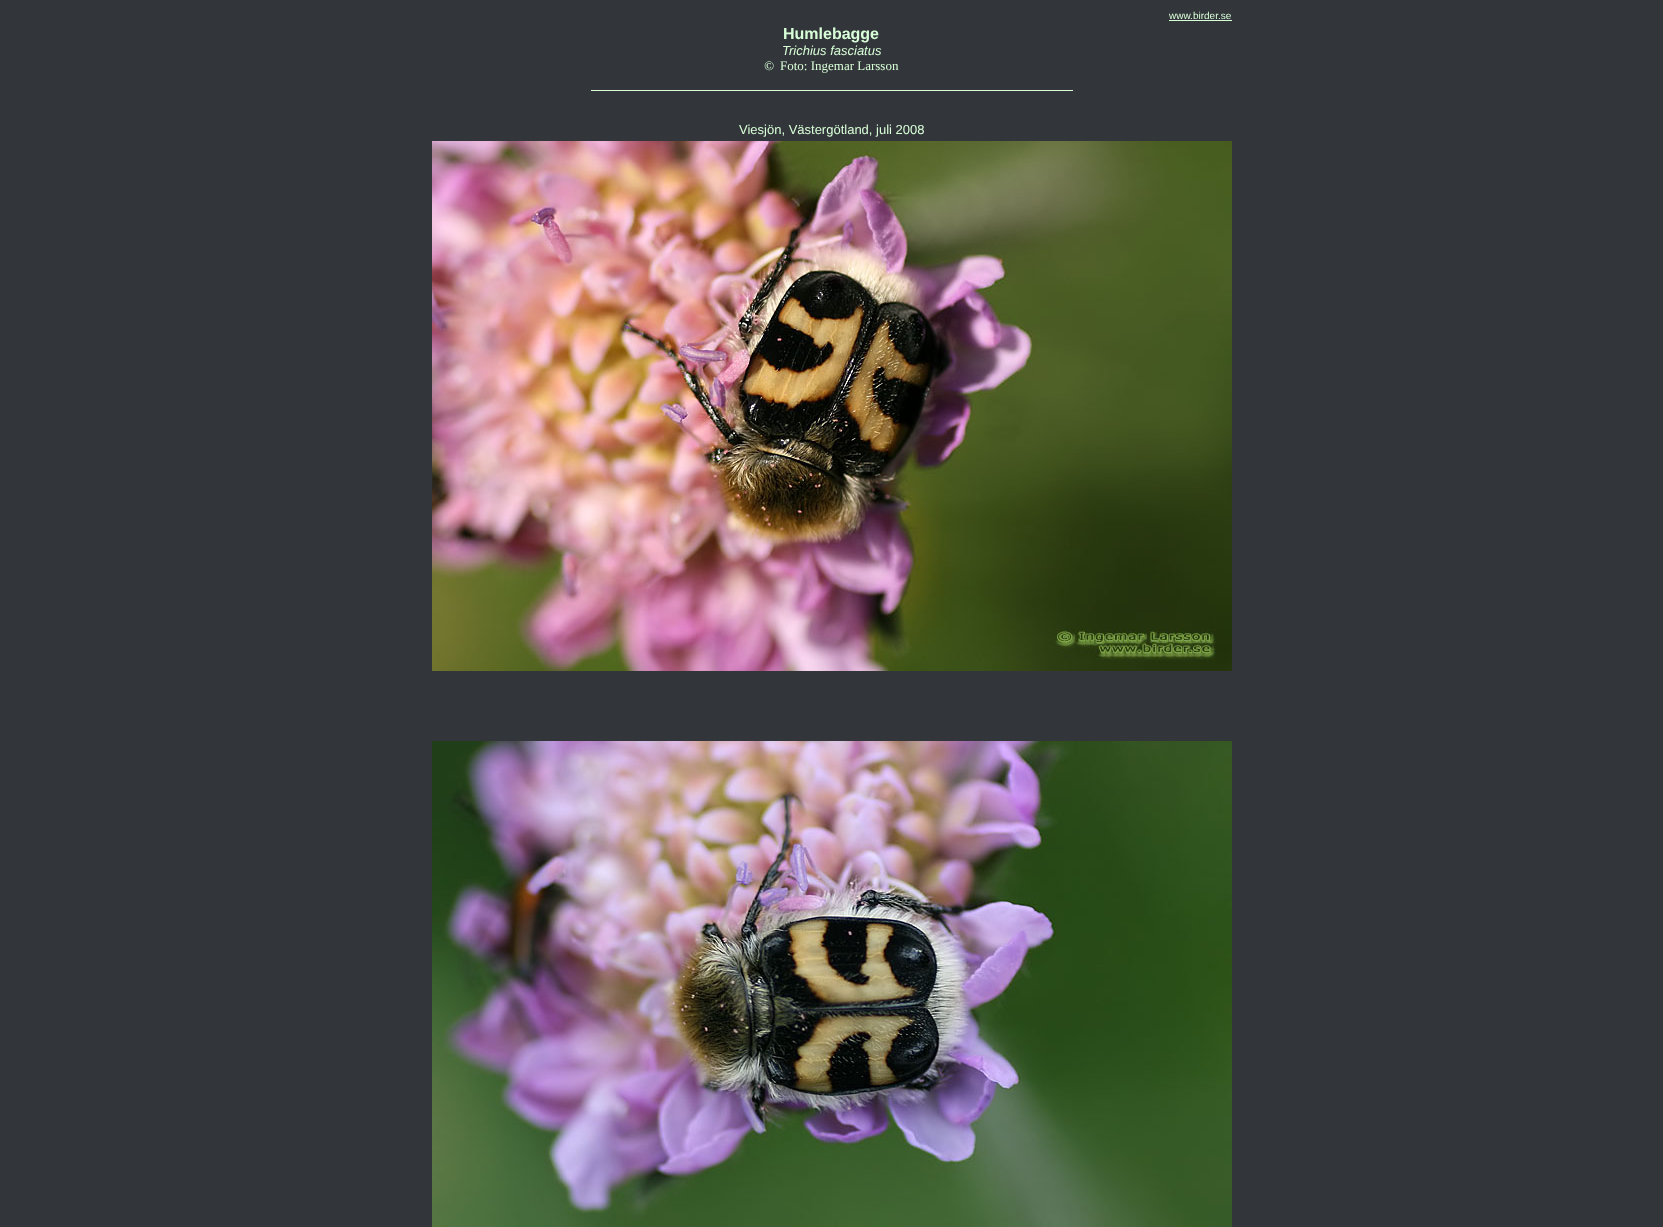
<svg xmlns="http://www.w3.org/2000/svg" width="1663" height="1227">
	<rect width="100%" height="100%" fill="#323539" />
	<text x="1169" y="19" font-family="Liberation Sans" font-size="10" fill="#D9FFD9">www.birder.se</text>
	<rect x="1169" y="20" width="63" height="1" fill="#D9FFD9" />
	<text x="783" y="39" font-family="Liberation Sans" font-size="16" font-weight="700" fill="#D9FFD9">Humlebagge</text>
	<text x="782" y="55" font-family="Liberation Sans" font-size="13" font-style="italic" fill="#D9FFD9">Trichius fasciatus</text>
	<text x="764" y="70" font-family="Liberation Serif" font-size="13" font-style="italic" fill="#D9FFD9">©</text>
	<text x="780" y="70" font-family="Liberation Serif" font-size="13" fill="#D9FFD9">Foto: Ingemar Larsson</text>
	<rect x="591" y="90" width="482" height="1" fill="#D9FFD9" />
	<text x="739" y="134" font-family="Liberation Sans" font-size="13" fill="#D9FFD9">Viesjön, Västergötland, juli 2008</text>
	<image x="432" y="141" width="800" height="530" href="assets/img1.png" />
	<image x="432" y="741" width="800" height="486" href="assets/img2.png" />
</svg>
